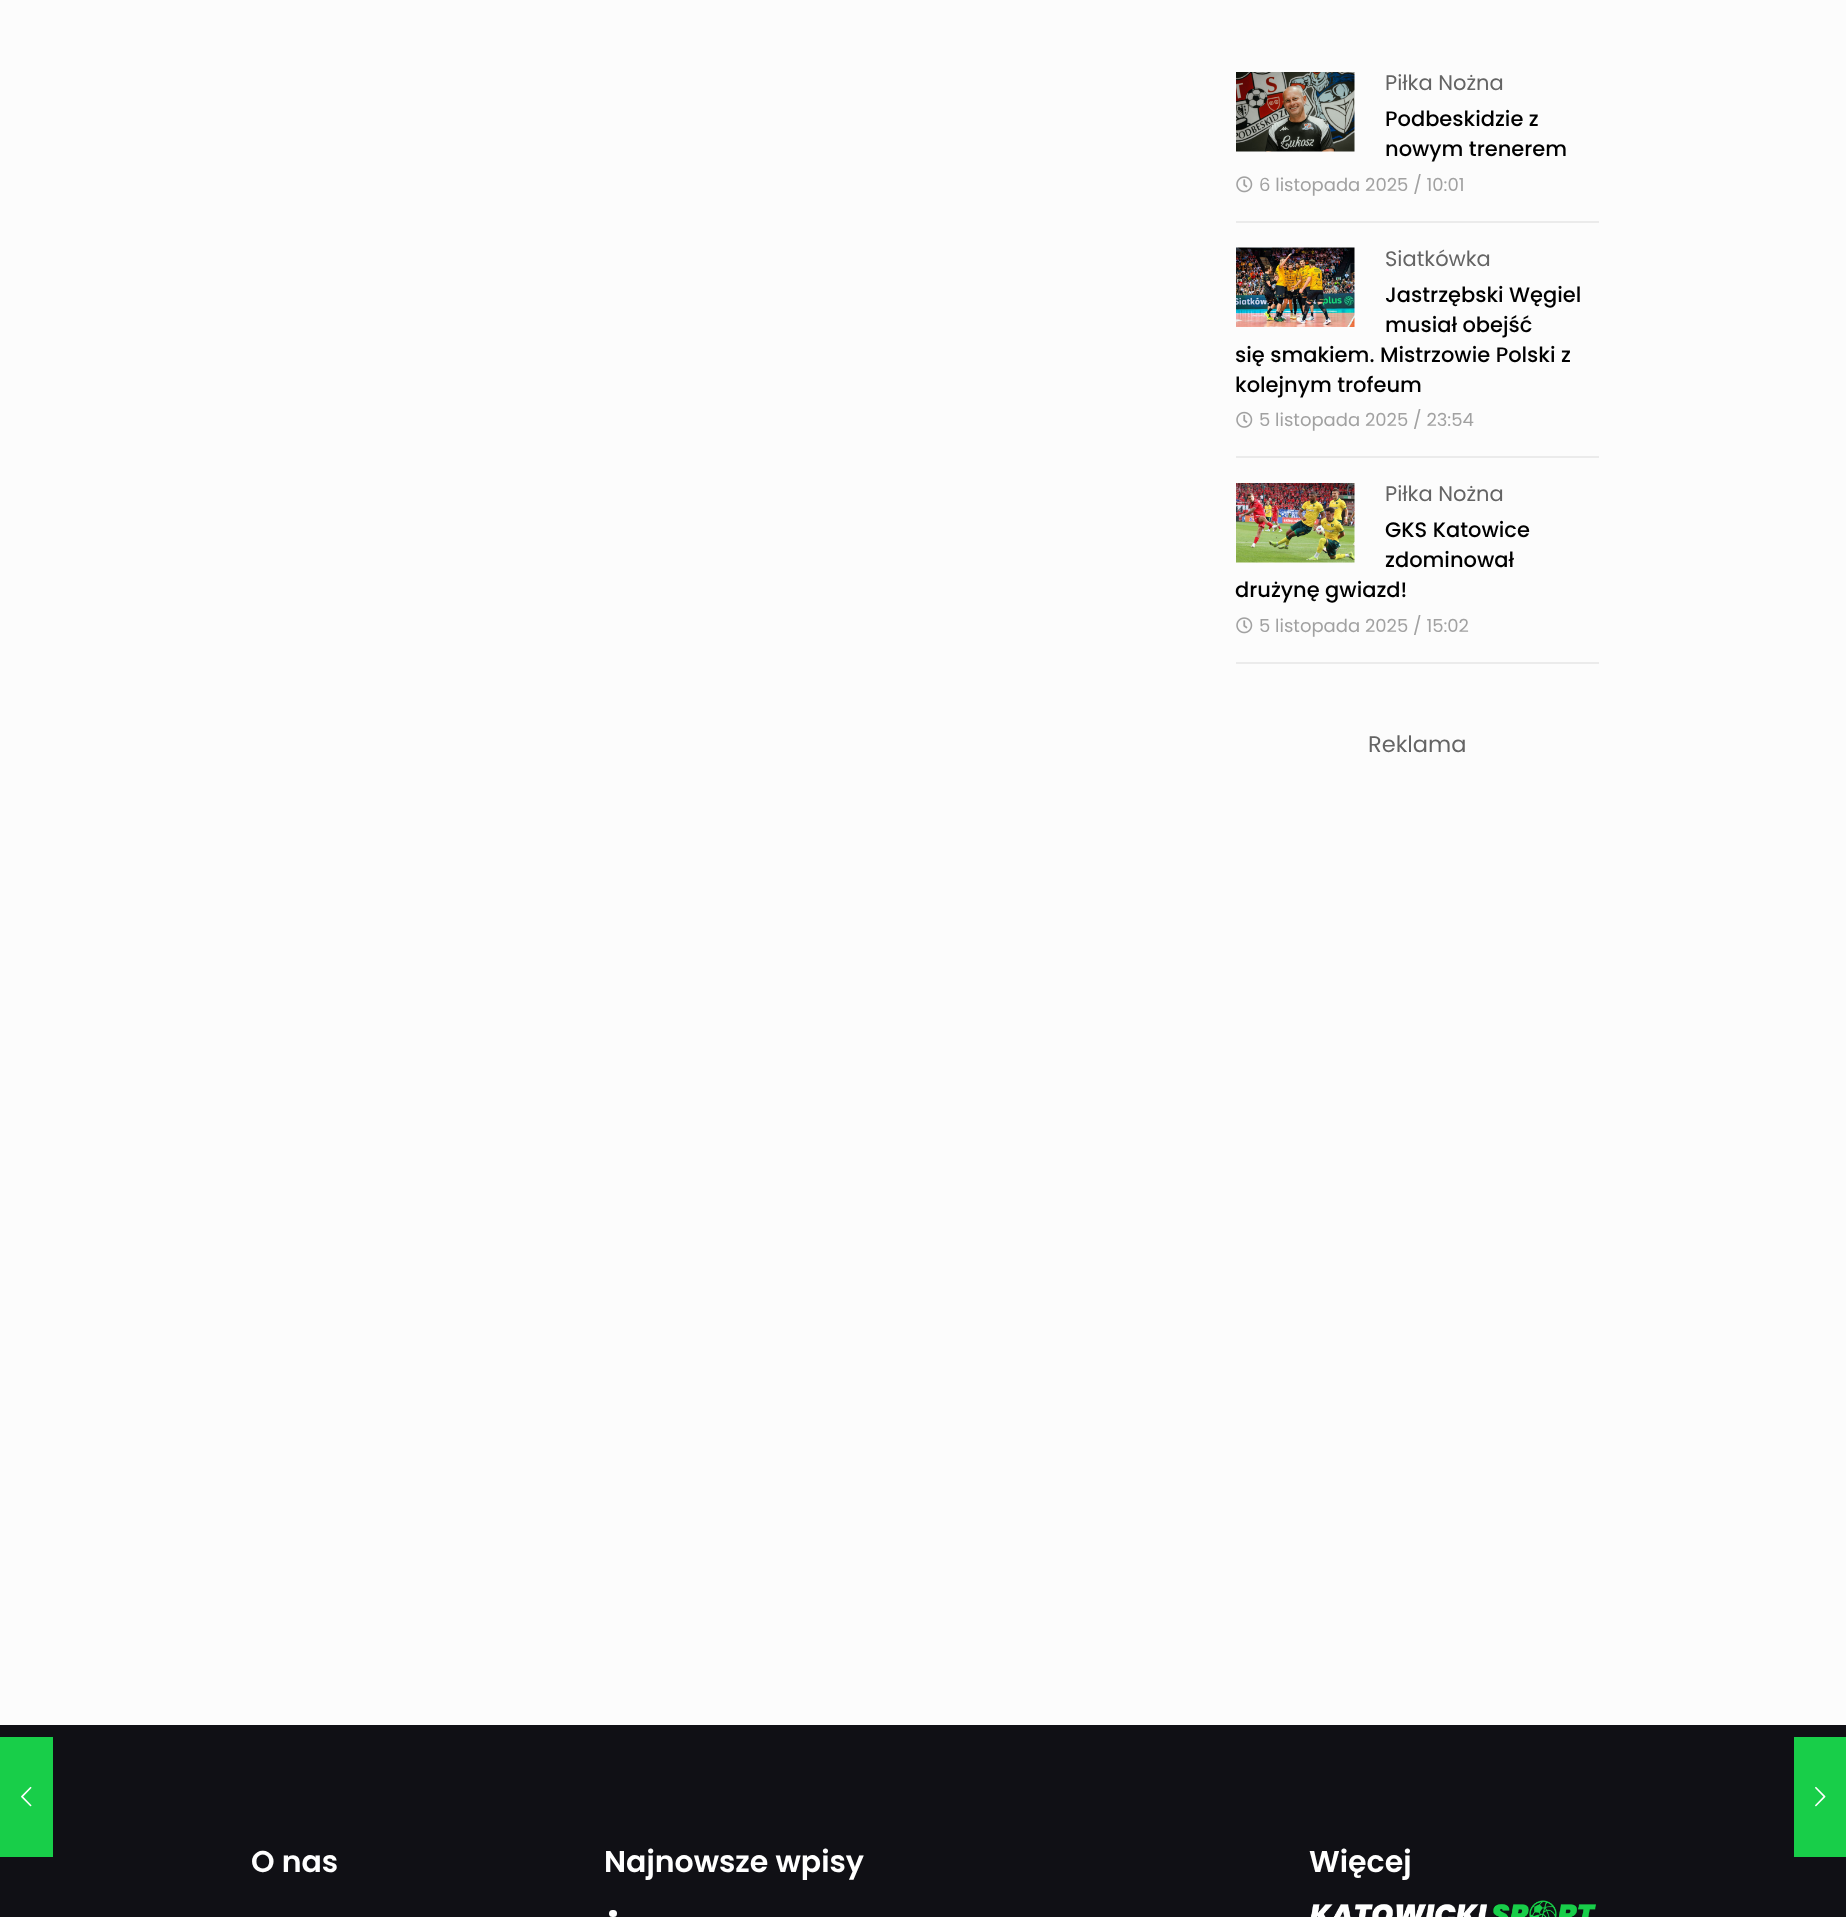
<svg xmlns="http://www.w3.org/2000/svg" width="1846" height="1917">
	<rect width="100%" height="100%" fill="#FCFCFC" />
	<rect x="0" y="1725" width="1846" height="192" fill="#101015" />
	<rect x="0" y="1737" width="53" height="120" fill="#18CE49" />
	<image x="21" y="1786" width="11" height="21" href="assets/img1.png" />
	<rect x="1236" y="221" width="363" height="2" fill="#EBEBEB" />
	<image x="1236" y="72" width="119" height="80" href="assets/img2.png" />
	<text x="1385" y="90" font-family="Poppins" font-size="21" fill="#646464">Piłka Nożna</text>
	<g font-family="Poppins" font-size="21" font-weight="500" fill="#000000">
		<text x="1385" y="126">Podbeskidzie z</text>
		<text x="1385" y="156">nowym trenerem</text>
	</g>
	<image x="1236" y="176" width="17" height="17" href="assets/img3.png" />
	<text x="1259" y="191" font-family="Poppins" font-size="18" fill="#A1A1A1">6 listopada 2025 / 10:01</text>
	<rect x="1236" y="456" width="363" height="2" fill="#EBEBEB" />
	<image x="1236" y="247" width="119" height="80" href="assets/img4.png" />
	<text x="1385" y="266" font-family="Poppins" font-size="21" fill="#646464">Siatkówka</text>
	<g font-family="Poppins" font-size="21" font-weight="500" fill="#000000">
		<text x="1385" y="302">Jastrzębski Węgiel</text>
		<text x="1385" y="332">musiał obejść</text>
		<text x="1235" y="362">się smakiem. Mistrzowie Polski z</text>
		<text x="1235" y="392">kolejnym trofeum</text>
	</g>
	<image x="1236" y="411" width="17" height="17" href="assets/img5.png" />
	<text x="1259" y="426" font-family="Poppins" font-size="18" fill="#A1A1A1">5 listopada 2025 / 23:54</text>
	<rect x="1236" y="662" width="363" height="2" fill="#EBEBEB" />
	<image x="1236" y="483" width="119" height="80" href="assets/img6.png" />
	<text x="1385" y="501" font-family="Poppins" font-size="21" fill="#646464">Piłka Nożna</text>
	<g font-family="Poppins" font-size="21" font-weight="500" fill="#000000">
		<text x="1385" y="537">GKS Katowice</text>
		<text x="1385" y="567">zdominował</text>
		<text x="1235" y="597">drużynę gwiazd!</text>
	</g>
	<image x="1236" y="617" width="17" height="17" href="assets/img3.png" />
	<text x="1259" y="632" font-family="Poppins" font-size="18" fill="#A1A1A1">5 listopada 2025 / 15:02</text>
	<text x="1368" y="752" font-family="Poppins" font-size="22.5" fill="#646464">Reklama</text>
	<g font-family="Poppins" font-size="30" font-weight="600" fill="#FFFFFF">
		<text x="251" y="1872">O nas</text>
		<text x="604" y="1872">Najnowsze wpisy</text>
	</g>
	<rect x="609" y="1910" width="8" height="7" rx="3.5" fill="#FFFFFF" />
	<text x="1309" y="1872" font-family="Poppins" font-size="30" font-weight="600" fill="#FFFFFF">Więcej</text>
	<image x="1310" y="1900" width="286" height="17" href="assets/img7.png" />
	<rect x="1794" y="1737" width="52" height="120" fill="#18CE49" />
	<image x="1815" y="1786" width="11" height="21" href="assets/img8.png" />
</svg>
